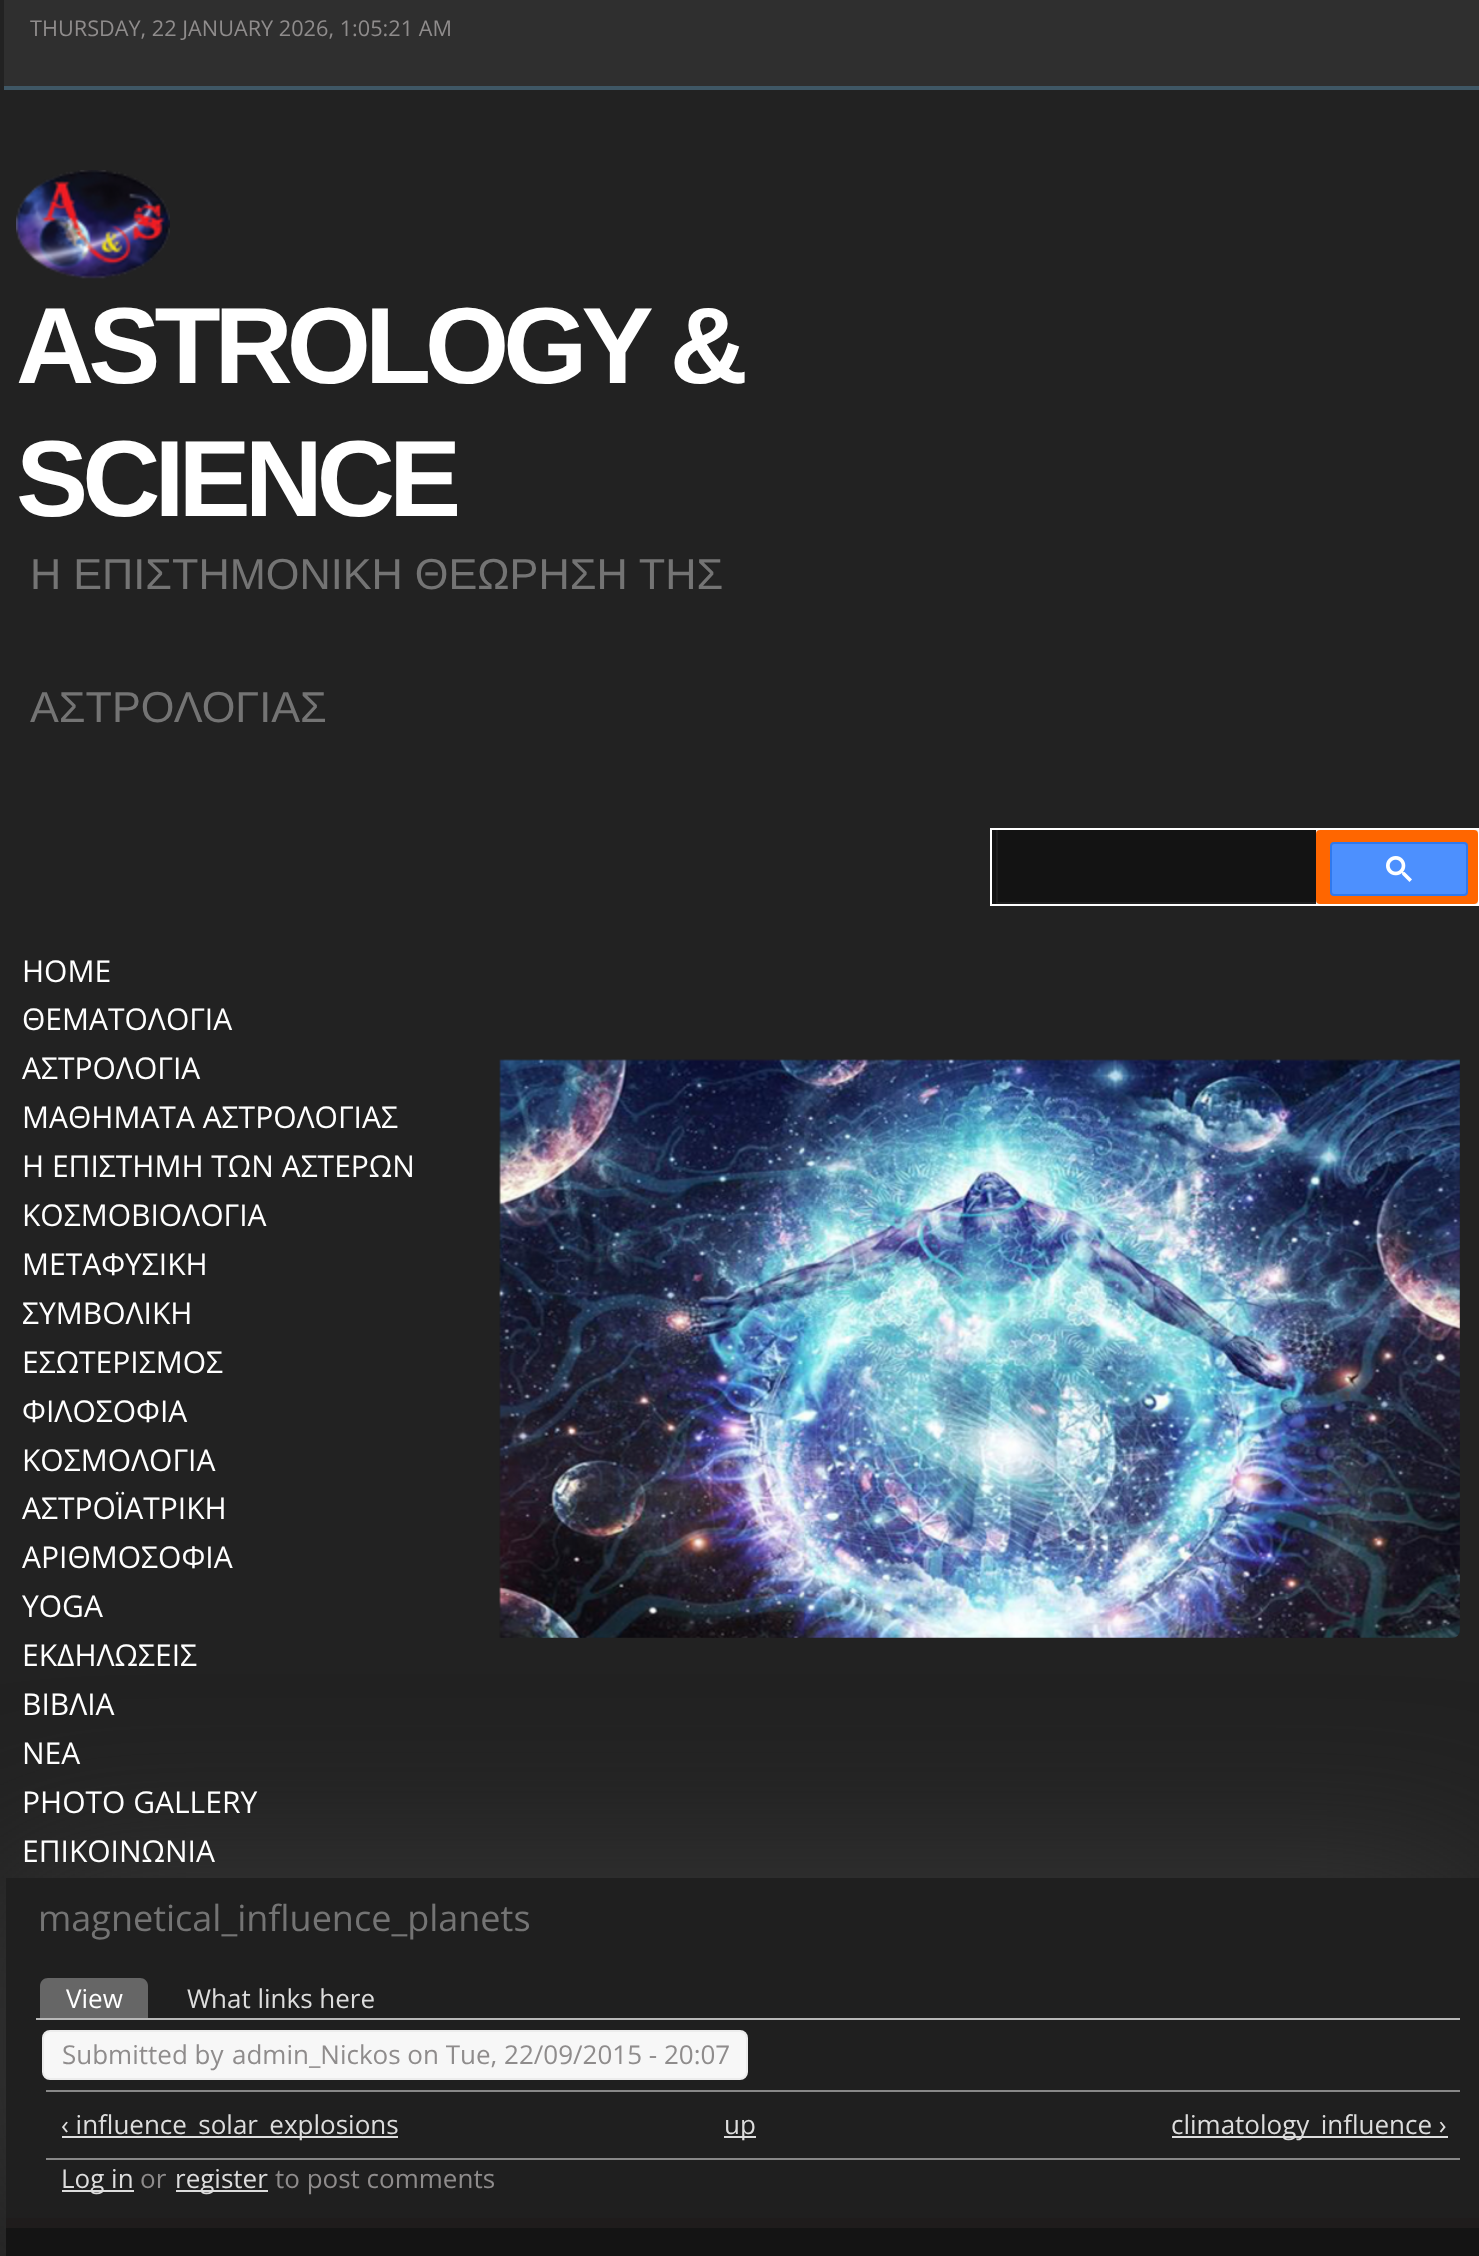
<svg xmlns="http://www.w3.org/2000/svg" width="1479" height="2256">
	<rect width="100%" height="100%" fill="#222222" />
	<rect x="4" y="0" width="1475" height="86" fill="#2F2F2F" />
	<rect x="4" y="86" width="1475" height="4" fill="#3F5765" />
	<text x="30" y="36" font-family="Open Sans" font-size="21.7" fill="#8F8C8C">THURSDAY, 22 JANUARY 2026, 1:05:21 AM</text>
	<image x="16" y="170" width="154" height="109" href="assets/img1.png" />
	<g font-family="Liberation Sans" font-size="108.25" font-weight="700" letter-spacing="-6" fill="#FFFFFF">
		<text x="16" y="383">ASTROLOGY &amp;</text>
		<text x="16" y="516">SCIENCE</text>
	</g>
	<g font-family="Liberation Sans" font-size="43.25" fill="#747474">
		<text x="30" y="589">Η ΕΠΙΣΤΗΜΟΝΙΚΗ ΘΕΩΡΗΣΗ ΤΗΣ</text>
		<text x="30" y="722">ΑΣΤΡΟΛΟΓΙΑΣ</text>
	</g>
	<rect x="992" y="830" width="4" height="74" fill="#131313" />
	<rect x="991" y="829" width="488" height="76" fill="none" stroke="#FFFFFF" stroke-width="2" />
	<rect x="1316" y="830" width="162" height="74" fill="#ECECEC" />
	<rect x="996" y="830" width="320" height="74" fill="#1F1F1F" />
	<rect x="998" y="830" width="318" height="72" fill="#131313" />
	<rect x="1316" y="830" width="162" height="74" rx="4" fill="#FF6600" />
	<rect x="1331" y="843" width="136" height="52" rx="3" fill="#4D90FE" stroke="#3079ED" stroke-width="2" />
	<image x="1386" y="856" width="26" height="26" href="assets/img2.png" />
	<g font-family="Open Sans" font-size="30" fill="#FFFFFF">
		<text x="22" y="982">HOME</text>
		<text x="22" y="1030">ΘΕΜΑΤΟΛΟΓΙΑ</text>
		<text x="22" y="1079">ΑΣΤΡΟΛΟΓΙΑ</text>
		<text x="22" y="1128">ΜΑΘΗΜΑΤΑ ΑΣΤΡΟΛΟΓΙΑΣ</text>
		<text x="22" y="1177">Η ΕΠΙΣΤΗΜΗ ΤΩΝ ΑΣΤΕΡΩΝ</text>
		<text x="22" y="1226">ΚΟΣΜΟΒΙΟΛΟΓΙΑ</text>
		<text x="22" y="1275">ΜΕΤΑΦΥΣΙΚΗ</text>
		<text x="22" y="1324">ΣΥΜΒΟΛΙΚΗ</text>
		<text x="22" y="1373">ΕΣΩΤΕΡΙΣΜΟΣ</text>
		<text x="22" y="1422">ΦΙΛΟΣΟΦΙΑ</text>
		<text x="22" y="1471">ΚΟΣΜΟΛΟΓΙΑ</text>
		<text x="22" y="1519">ΑΣΤΡΟΪΑΤΡΙΚΗ</text>
		<text x="22" y="1568">ΑΡΙΘΜΟΣΟΦΙΑ</text>
		<text x="22" y="1617">YOGA</text>
	</g>
	<rect x="6" y="1878" width="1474" height="340" fill="#383838" filter="blur(85px)" />
	<g font-family="Open Sans" font-size="30" fill="#FFFFFF">
		<text x="22" y="1666">ΕΚΔΗΛΩΣΕΙΣ</text>
		<text x="22" y="1715">ΒΙΒΛΙΑ</text>
		<text x="22" y="1764">ΝΕΑ</text>
		<text x="22" y="1813">PHOTO GALLERY</text>
		<text x="22" y="1862">ΕΠΙΚΟΙΝΩΝΙΑ</text>
	</g>
	<image x="499" y="1059" width="961" height="579" href="assets/img3.png" />
	<rect x="6" y="1878" width="1473" height="340" fill="#1F1F1F" />
	<text x="38" y="1931" font-family="Open Sans" font-size="36" fill="#747474">magnetical_influence_planets</text>
	<rect x="36" y="2018" width="1424" height="2" fill="#B7B7B7" />
	<path d="M48 1978H140C144.5 1978 148 1981.5 148 1986V2018H40V1986C40 1981.5 43.5 1978 48 1978Z" fill="#666666" />
	<text x="66" y="2008" font-family="Open Sans" font-size="26" fill="#FFFFFF">View</text>
	<text x="187" y="2008" font-family="Open Sans" font-size="26" fill="#DDDDDD">What links here</text>
	<rect x="43" y="2031" width="704" height="48" rx="7" fill="#F7F7F7" stroke="#ECECEC" stroke-width="2" />
	<g font-family="Open Sans" font-size="26" fill="#8F8C8C">
		<text x="62" y="2064">Submitted by</text>
		<text x="232" y="2064">admin_Nickos on Tue, 22/09/2015 - 20:07</text>
	</g>
	<rect x="46" y="2090" width="1414" height="2" fill="#888888" />
	<rect x="46" y="2158" width="1414" height="2" fill="#888888" />
	<rect x="62" y="2136" width="336" height="2" fill="#DDDDDD" />
	<text x="61" y="2134" font-family="Open Sans" font-size="26" fill="#DDDDDD">‹ influence_solar_explosions</text>
	<rect x="724" y="2136" width="32" height="2" fill="#DDDDDD" />
	<text x="724" y="2134" font-family="Open Sans" font-size="26" fill="#DDDDDD">up</text>
	<rect x="1172" y="2136" width="276" height="2" fill="#DDDDDD" />
	<text x="1171" y="2134" font-family="Open Sans" font-size="26" fill="#DDDDDD">climatology_influence ›</text>
	<rect x="62" y="2190" width="72" height="2" fill="#DDDDDD" />
	<text x="61" y="2188" font-family="Open Sans" font-size="26" fill="#DDDDDD">Log in</text>
	<text x="140" y="2188" font-family="Open Sans" font-size="26" fill="#8F8C8C">or</text>
	<rect x="176" y="2190" width="92" height="2" fill="#DDDDDD" />
	<text x="175" y="2188" font-family="Open Sans" font-size="26" fill="#DDDDDD">register</text>
	<text x="275" y="2188" font-family="Open Sans" font-size="26" fill="#8F8C8C">to post comments</text>
	<rect x="6" y="2228" width="1473" height="28" fill="#141414" />
	<rect x="6" y="2218" width="1473" height="10" fill="#1F1C1C" />
</svg>
